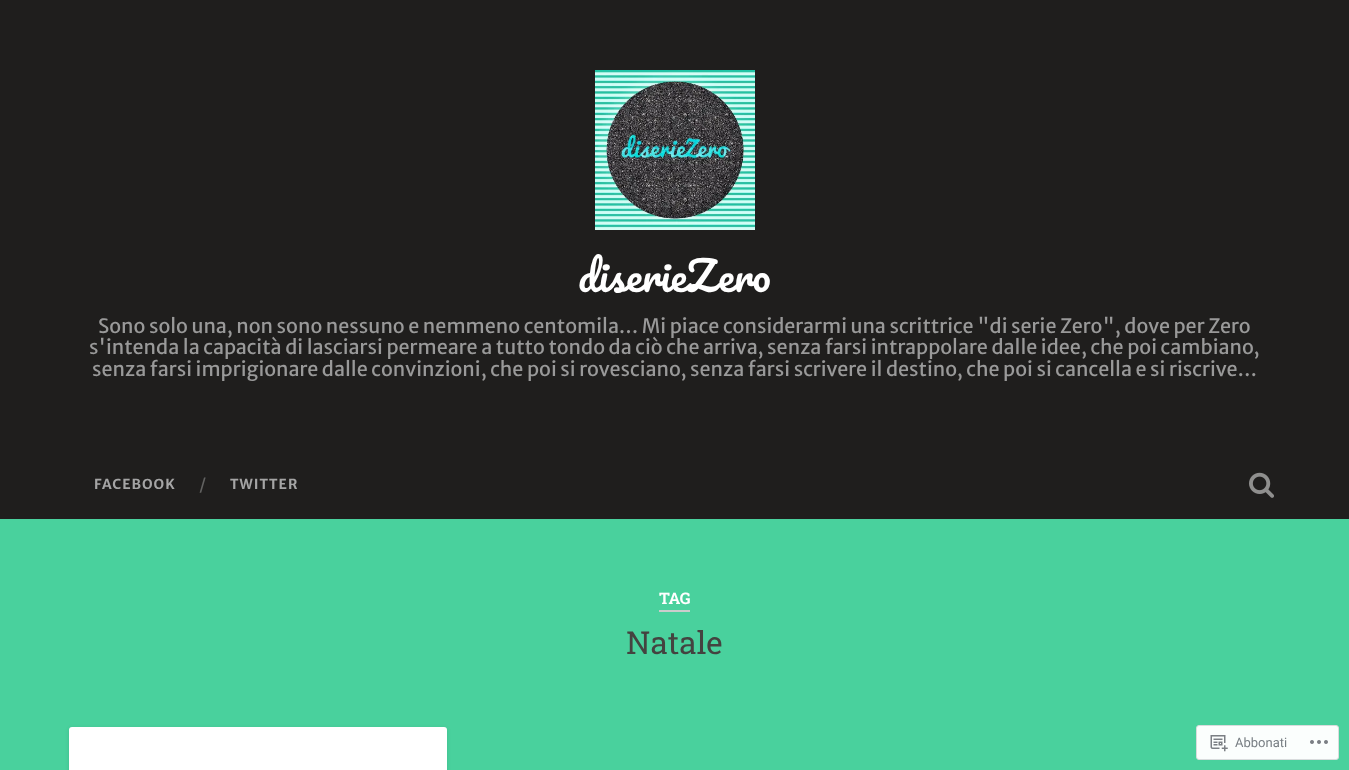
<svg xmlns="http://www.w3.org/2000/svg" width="1349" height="770">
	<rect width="100%" height="100%" fill="#49D19D" />
	<rect x="0" y="0" width="1349" height="519" fill="#1F1E1D" />
	<image x="595" y="70" width="160" height="160" href="assets/img1.png" />
	<text x="578" y="292" font-family="Pacifico" font-size="40.5" fill="#FFFFFF">diserieZero</text>
	<g font-family="Merriweather Sans" font-size="19.8" fill="#999999">
		<text x="98" y="333">Sono solo una, non sono nessuno e nemmeno centomila… Mi piace considerarmi una scrittrice "di serie Zero", dove per Zero</text>
		<text x="89" y="354">s'intenda la capacità di lasciarsi permeare a tutto tondo da ciò che arriva, senza farsi intrappolare dalle idee, che poi cambiano,</text>
		<text x="92" y="376">senza farsi imprigionare dalle convinzioni, che poi si rovesciano, senza farsi scrivere il destino, che poi si cancella e si riscrive…</text>
	</g>
	<text x="94" y="489" font-family="Merriweather Sans" font-size="13.75" font-weight="700" letter-spacing="1" fill="#A5A5A5">FACEBOOK</text>
	<text x="199" y="490" font-family="Merriweather Sans" font-size="16" fill="#626261">/</text>
	<text x="230" y="489" font-family="Merriweather Sans" font-size="13.75" font-weight="700" letter-spacing="1" fill="#A5A5A5">TWITTER</text>
	<image x="1249" y="472" width="25" height="26" href="assets/img2.png" />
	<rect x="659" y="610" width="31" height="2" fill="#CCCCCC" />
	<text x="659" y="604" font-family="Roboto Slab" font-size="16" font-weight="700" fill="#FFFFFF">TAG</text>
	<text x="626" y="654" font-family="Roboto Slab" font-size="31.5" fill="#444340">Natale</text>
	<rect x="69" y="728" width="378" height="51" rx="3" fill="#000000" fill-opacity="0.1" filter="blur(2px)" />
	<rect x="69" y="727" width="378" height="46" rx="3" fill="#FFFFFF" />
	<rect x="1196.5" y="725.5" width="142" height="34" rx="2.5" fill="#FBFEFD" stroke="#D9DCDD" />
	<image x="1210" y="735" width="18" height="17" href="assets/img3.png" />
	<text x="1235" y="747" font-family="Roboto" font-size="13" fill="#777E83">Abbonati</text>
	<image x="1310" y="740" width="18" height="4" href="assets/img4.png" />
</svg>
